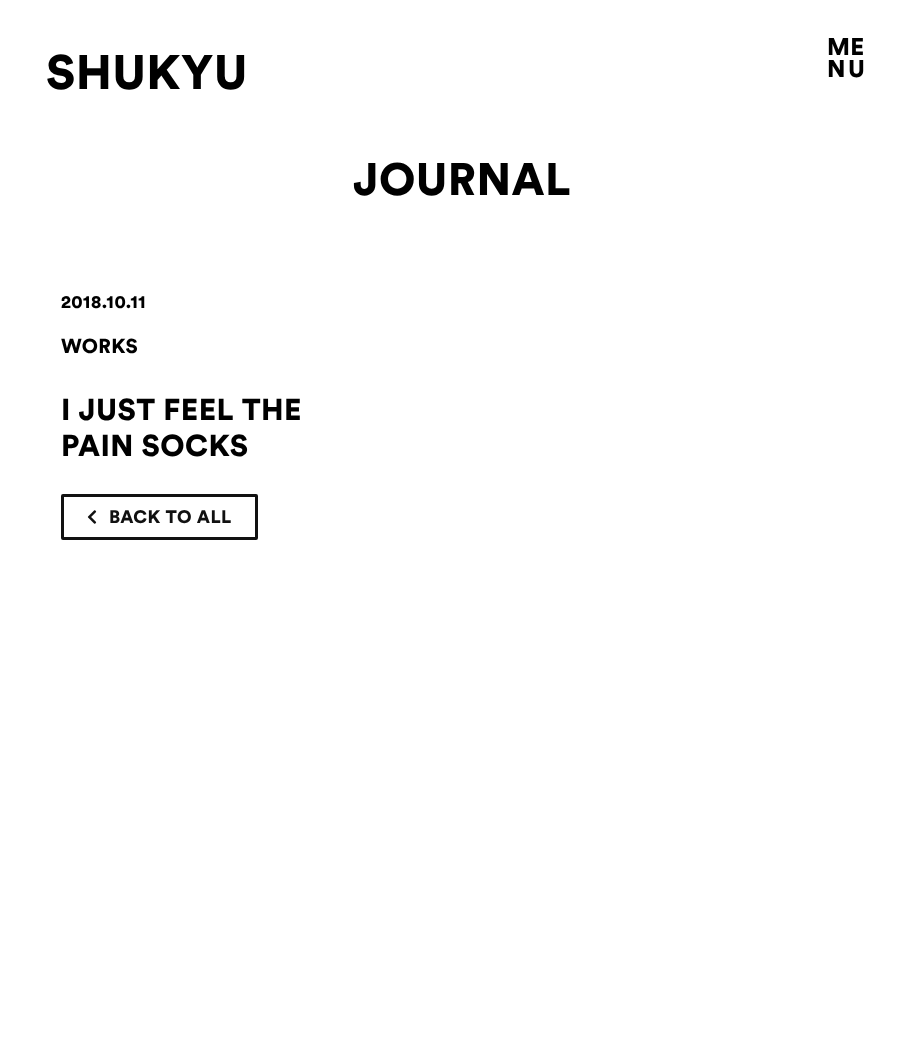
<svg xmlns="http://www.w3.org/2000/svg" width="924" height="1045">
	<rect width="100%" height="100%" fill="#FFFFFF" />
	<text x="46" y="89" font-family="Circular" font-size="48" font-weight="900" letter-spacing="0.4" fill="#000000">SHUKYU</text>
	<g font-family="Circular" font-size="24" font-weight="900" letter-spacing="0.4" fill="#000000">
		<text x="827" y="55">ME</text>
		<text x="827" y="77">N</text>
		<text x="848" y="77">U</text>
	</g>
	<text x="353" y="195" font-family="Circular" font-size="45" font-weight="900" letter-spacing="0.4" fill="#000000">JOURNAL</text>
	<text x="61" y="308" font-family="Circular" font-size="18" font-weight="900" letter-spacing="0.4" fill="#000000">2018.10.11</text>
	<text x="61" y="353" font-family="Circular" font-size="20" font-weight="900" letter-spacing="0.4" fill="#000000">WORKS</text>
	<g font-family="Circular" font-size="30" font-weight="900" letter-spacing="0.4" fill="#000000">
		<text x="61" y="420">I JUST FEEL THE</text>
		<text x="61" y="456">PAIN SOCKS</text>
	</g>
	<rect x="62.5" y="495.5" width="194" height="43" rx="0.5" fill="none" stroke="#111111" stroke-width="3" />
	<image x="87" y="510" width="10" height="14" href="assets/img1.png" />
	<text x="109" y="523" font-family="Circular" font-size="18" font-weight="900" letter-spacing="0.4" fill="#111111">BACK TO ALL</text>
</svg>
